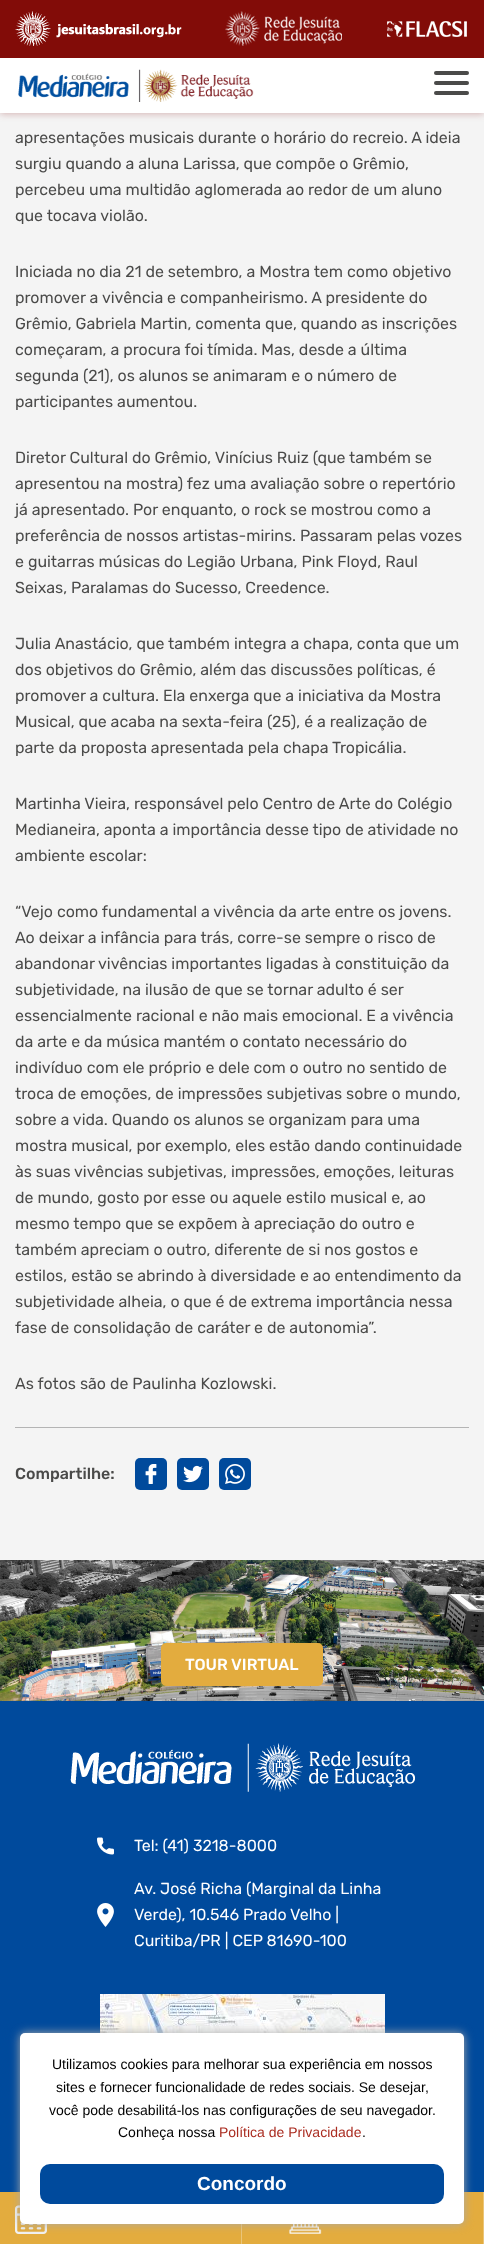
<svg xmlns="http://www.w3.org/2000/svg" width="484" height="2244">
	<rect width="100%" height="100%" fill="#F4F4F4" />
	<rect x="0" y="59" width="484" height="55" fill="#8B1D1D" fill-opacity="0.3" filter="blur(3.5px)" />
	<rect x="0" y="0" width="484" height="58" fill="#820C08" />
	<image x="15" y="11" width="167" height="35" href="assets/img1.png" />
	<image x="225" y="11" width="117" height="35" href="assets/img2.png" />
	<image x="387" y="21" width="80" height="16" href="assets/img3.png" />
	<rect x="0" y="58" width="484" height="55" fill="#FFFFFF" />
	<image x="18" y="69" width="236" height="33" href="assets/img4.png" />
	<rect x="434" y="71" width="35" height="4" rx="2" fill="#4A4A49" />
	<rect x="434" y="81" width="35" height="4" rx="2" fill="#4A4A49" />
	<rect x="434" y="91" width="35" height="4" rx="2" fill="#4A4A49" />
	<g font-family="Rubik" font-size="16" fill="#4A4A49">
		<text x="15" y="143">apresentações musicais durante o horário do recreio. A ideia</text>
		<text x="15" y="169">surgiu quando a aluna Larissa, que compõe o Grêmio,</text>
		<text x="15" y="195">percebeu uma multidão aglomerada ao redor de um aluno</text>
		<text x="15" y="221">que tocava violão.</text>
		<text x="15" y="277">Iniciada no dia 21 de setembro, a Mostra tem como objetivo</text>
		<text x="15" y="303">promover a vivência e companheirismo. A presidente do</text>
		<text x="15" y="329">Grêmio, Gabriela Martin, comenta que, quando as inscrições</text>
		<text x="15" y="355">começaram, a procura foi tímida. Mas, desde a última</text>
		<text x="15" y="381">segunda (21), os alunos se animaram e o número de</text>
		<text x="15" y="407">participantes aumentou.</text>
		<text x="15" y="463">Diretor Cultural do Grêmio, Vinícius Ruiz (que também se</text>
		<text x="15" y="489">apresentou na mostra) fez uma avaliação sobre o repertório</text>
		<text x="15" y="515">já apresentado. Por enquanto, o rock se mostrou como a</text>
		<text x="15" y="541">preferência de nossos artistas-mirins. Passaram pelas vozes</text>
		<text x="15" y="567">e guitarras músicas do Legião Urbana, Pink Floyd, Raul</text>
		<text x="15" y="593">Seixas, Paralamas do Sucesso, Creedence.</text>
		<text x="15" y="649">Julia Anastácio, que também integra a chapa, conta que um</text>
		<text x="15" y="675">dos objetivos do Grêmio, além das discussões políticas, é</text>
		<text x="15" y="701">promover a cultura. Ela enxerga que a iniciativa da Mostra</text>
		<text x="15" y="727">Musical, que acaba na sexta-feira (25), é a realização de</text>
		<text x="15" y="753">parte da proposta apresentada pela chapa Tropicália.</text>
		<text x="15" y="809">Martinha Vieira, responsável pelo Centro de Arte do Colégio</text>
		<text x="15" y="835">Medianeira, aponta a importância desse tipo de atividade no</text>
		<text x="15" y="861">ambiente escolar:</text>
		<text x="15" y="917">“Vejo como fundamental a vivência da arte entre os jovens.</text>
		<text x="15" y="943">Ao deixar a infância para trás, corre-se sempre o risco de</text>
		<text x="15" y="969">abandonar vivências importantes ligadas à constituição da</text>
		<text x="15" y="995">subjetividade, na ilusão de que se tornar adulto é ser</text>
		<text x="15" y="1021">essencialmente racional e não mais emocional. E a vivência</text>
		<text x="15" y="1047">da arte e da música mantém o contato necessário do</text>
		<text x="15" y="1073">indivíduo com ele próprio e dele com o outro no sentido de</text>
		<text x="15" y="1099">troca de emoções, de impressões subjetivas sobre o mundo,</text>
		<text x="15" y="1125">sobre a vida. Quando os alunos se organizam para uma</text>
		<text x="15" y="1151">mostra musical, por exemplo, eles estão dando continuidade</text>
		<text x="15" y="1177">às suas vivências subjetivas, impressões, emoções, leituras</text>
		<text x="15" y="1203">de mundo, gosto por esse ou aquele estilo musical e, ao</text>
		<text x="15" y="1229">mesmo tempo que se expõem à apreciação do outro e</text>
		<text x="15" y="1255">também apreciam o outro, diferente de si nos gostos e</text>
		<text x="15" y="1281">estilos, estão se abrindo à diversidade e ao entendimento da</text>
		<text x="15" y="1307">subjetividade alheia, o que é de extrema importância nessa</text>
		<text x="15" y="1333">fase de consolidação de caráter e de autonomia”.</text>
		<text x="15" y="1389">As fotos são de Paulinha Kozlowski.</text>
	</g>
	<rect x="15" y="1427" width="454" height="1" fill="#B4B4B4" />
	<text x="15" y="1479" font-family="Rubik" font-size="16" font-weight="500" fill="#4A4A49">Compartilhe:</text>
	<rect x="135" y="1458" width="32" height="32" rx="5" fill="#004A9C" />
	<image x="145" y="1464" width="12" height="20" href="assets/img5.png" />
	<rect x="177" y="1458" width="32" height="32" rx="5" fill="#004A9C" />
	<image x="183" y="1465" width="20" height="18" href="assets/img6.png" />
	<rect x="219" y="1458" width="32" height="32" rx="5" fill="#004A9C" />
	<image x="225" y="1464" width="20" height="20" href="assets/img7.png" />
	<image x="0" y="1560" width="484" height="141" href="assets/img8.png" />
	<rect x="161" y="1643" width="162" height="43" rx="5" fill="#E3AC3E" />
	<text x="185" y="1670" font-family="Rubik" font-size="16" font-weight="500" fill="#FFFFFF">TOUR VIRTUAL</text>
	<rect x="0" y="1701" width="484" height="491" fill="#004A9C" />
	<image x="70" y="1743" width="345" height="49" href="assets/img9.png" />
	<image x="97" y="1837" width="17" height="18" href="assets/img10.png" />
	<text x="134" y="1851" font-family="Rubik" font-size="16" fill="#FFFFFF">Tel: (41) 3218-8000</text>
	<image x="97" y="1903" width="17" height="24" href="assets/img11.png" />
	<g font-family="Rubik" font-size="16" fill="#FFFFFF">
		<text x="134" y="1894">Av. José Richa (Marginal da Linha</text>
		<text x="134" y="1920">Verde), 10.546 Prado Velho |</text>
		<text x="134" y="1946">Curitiba/PR | CEP 81690-100</text>
	</g>
	<image x="100" y="1994" width="285" height="39" href="assets/img12.png" />
	<rect x="0" y="2192" width="241" height="52" fill="#E3AC3E" />
	<rect x="241" y="2224" width="1" height="20" fill="#EBC578" />
	<image x="15" y="2205" width="32" height="29" href="assets/img13.png" />
	<rect x="242" y="2192" width="241" height="52" fill="#E3AC3E" />
	<image x="289" y="2224" width="33" height="10" href="assets/img14.png" />
	<rect x="20" y="2033" width="444" height="191" rx="5" fill="#AAAAAA" filter="blur(5px)" />
	<rect x="20" y="2033" width="444" height="191" rx="5" fill="#FFFFFF" />
	<g font-family="Liberation Sans" font-size="14" fill="#000000">
		<text x="52" y="2069">Utilizamos cookies para melhorar sua experiência em nossos</text>
		<text x="56" y="2092">sites e fornecer funcionalidade de redes sociais. Se desejar,</text>
		<text x="49" y="2115">você pode desabilitá-los nas configurações de seu navegador.</text>
		<text x="118" y="2137">Conheça nossa</text>
	</g>
	<text x="219" y="2137" font-family="Liberation Sans" font-size="14" fill="#AA2C20">Política de Privacidade</text>
	<text x="362" y="2137" font-family="Liberation Sans" font-size="14" fill="#000000">.</text>
	<rect x="40" y="2164" width="404" height="40" rx="10" fill="#004A9C" />
	<text x="197" y="2190" font-family="Liberation Sans" font-size="19" font-weight="700" fill="#FFFFFF">Concordo</text>
	<rect x="483" y="2192" width="1" height="52" fill="#EBC578" />
</svg>
